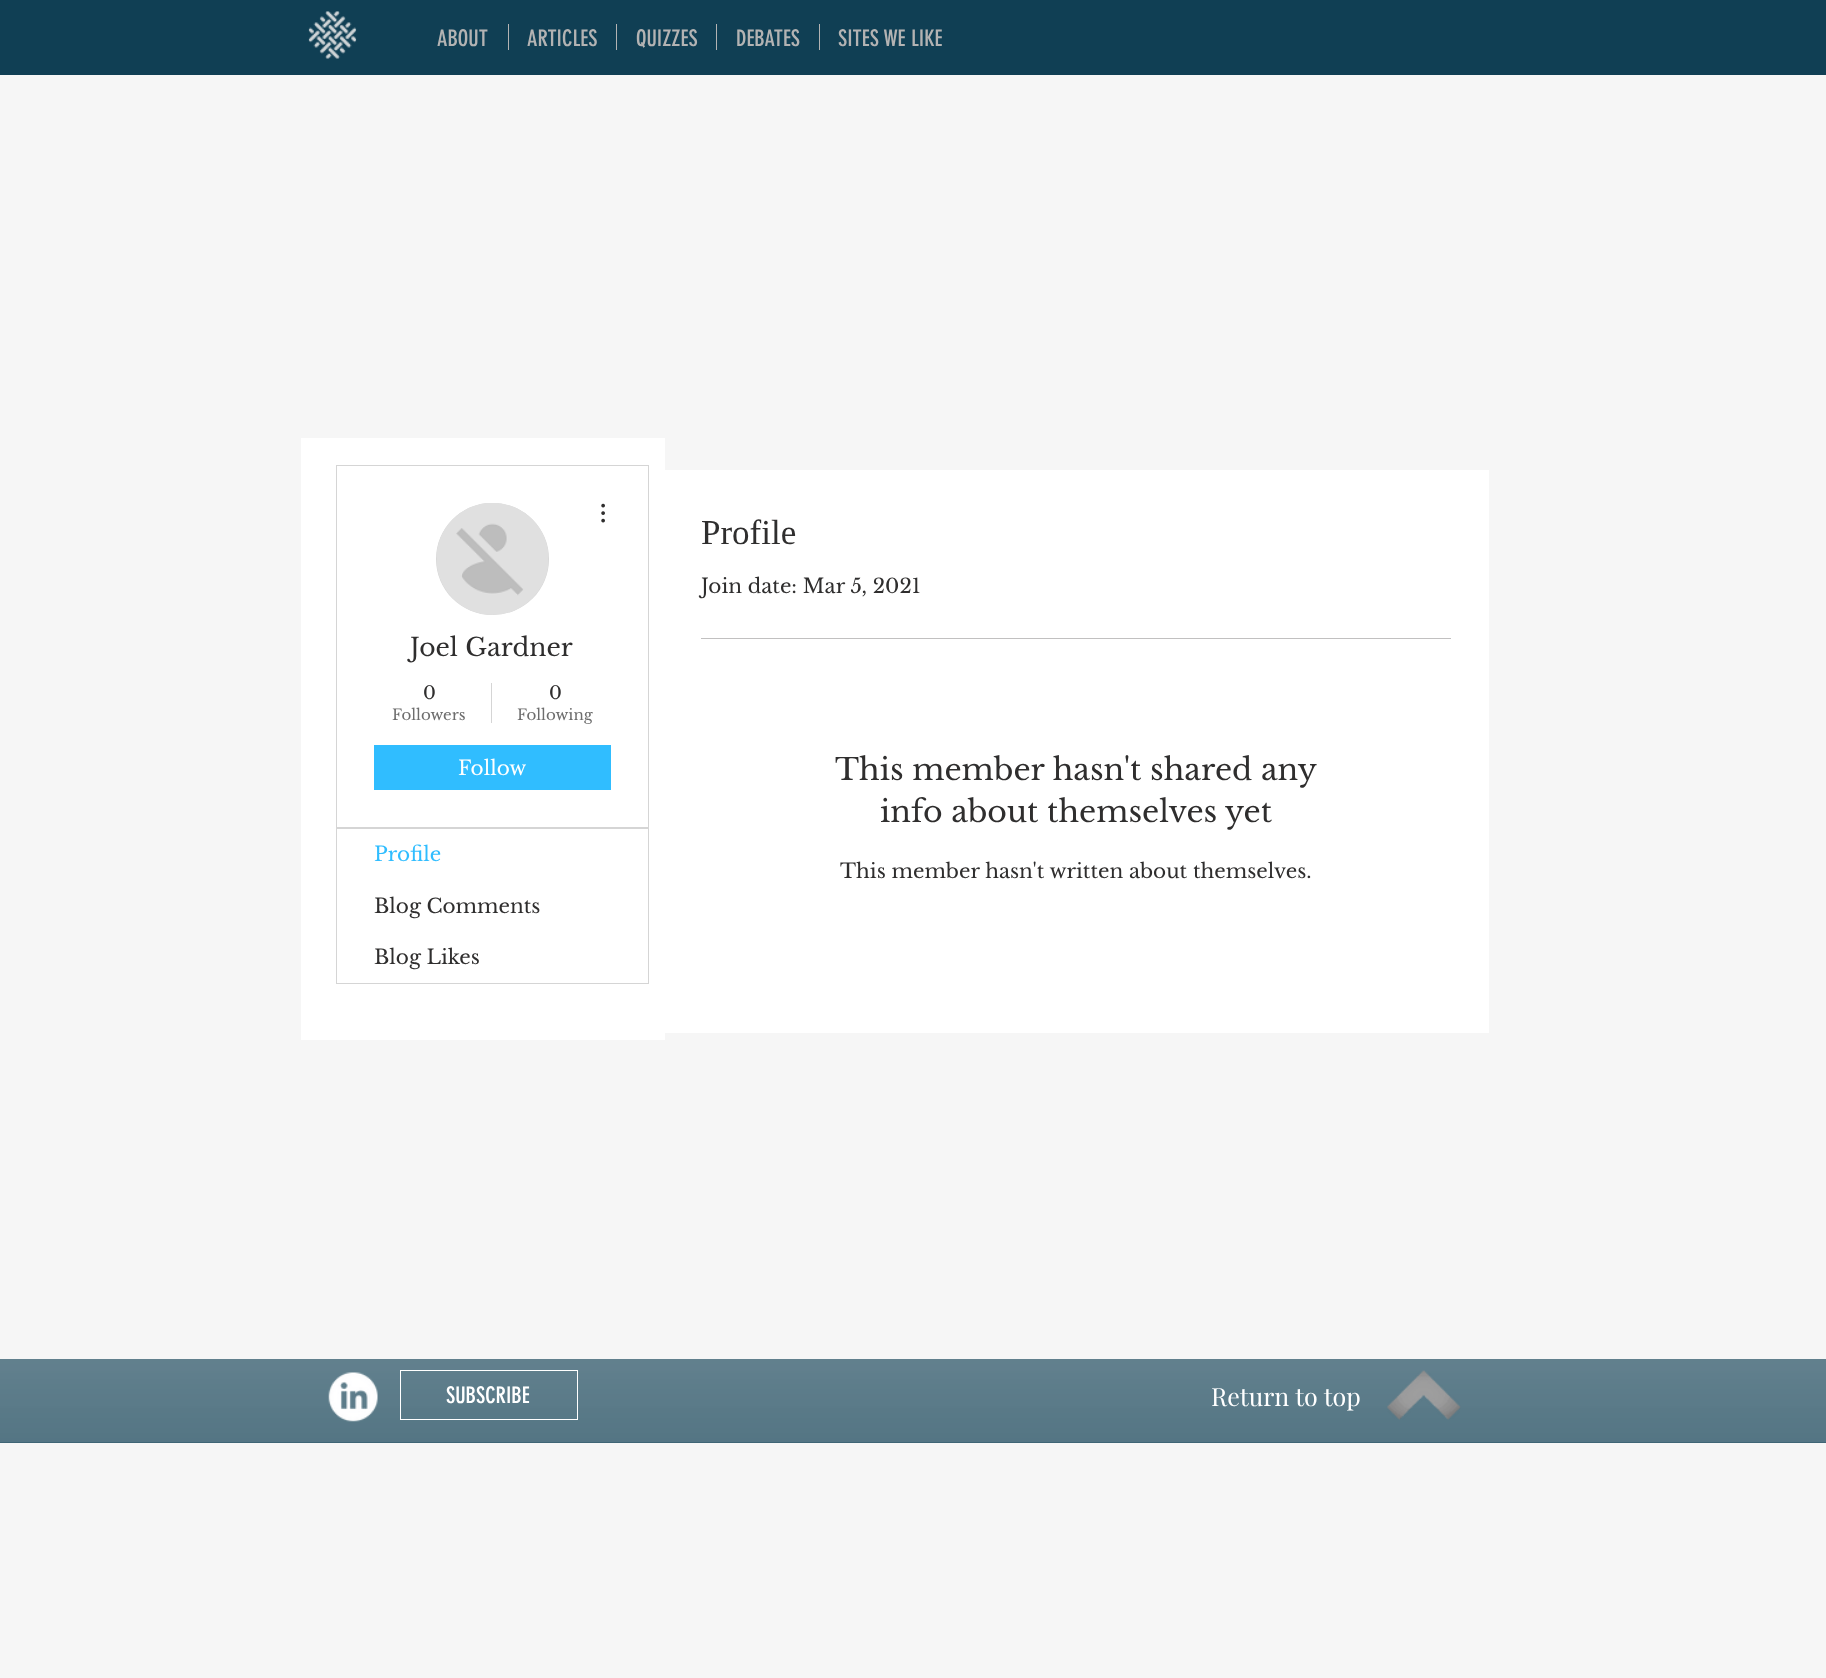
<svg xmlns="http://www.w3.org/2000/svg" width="1826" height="1678">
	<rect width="100%" height="100%" fill="#F6F6F6" />
	<rect x="0" y="0" width="1826" height="75" fill="#103F54" />
	<image x="308" y="11" width="49" height="48" href="assets/img1.png" />
	<text x="437" y="46" font-family="'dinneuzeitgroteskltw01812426'" font-size="22.5" fill="#B3B3B3">ABOUT</text>
	<rect x="508" y="24" width="1" height="26" fill="#B3B3B3" />
	<text x="527" y="46" font-family="'dinneuzeitgroteskltw01812426'" font-size="22.5" fill="#B3B3B3">ARTICLES</text>
	<rect x="616" y="24" width="1" height="26" fill="#B3B3B3" />
	<text x="636" y="46" font-family="'dinneuzeitgroteskltw01812426'" font-size="22.5" fill="#B3B3B3">QUIZZES</text>
	<rect x="716" y="24" width="1" height="26" fill="#B3B3B3" />
	<text x="736" y="46" font-family="'dinneuzeitgroteskltw01812426'" font-size="22.5" fill="#B3B3B3">DEBATES</text>
	<rect x="819" y="24" width="1" height="26" fill="#B3B3B3" />
	<text x="838" y="46" font-family="'dinneuzeitgroteskltw01812426'" font-size="22.5" fill="#B3B3B3">SITES WE LIKE</text>
	<rect x="301" y="438" width="364" height="602" fill="#FFFFFF" />
	<rect x="336.5" y="465.5" width="312" height="362" fill="none" stroke="#D5D5D5" />
	<rect x="436" y="503" width="113" height="112" rx="56" fill="#D8D8D8" />
	<image x="437" y="503" width="111" height="112" href="assets/img2.png" />
	<image x="601" y="503" width="4" height="20" href="assets/img3.png" />
	<text x="410" y="656" font-family="Libre Baskerville" font-size="25" fill="#2F2E2E">Joel Gardner</text>
	<text x="423" y="699" font-family="Libre Baskerville" font-size="18" fill="#2F2E2E">0</text>
	<text x="392" y="720" font-family="Libre Baskerville" font-size="15" fill="#6D6D6D">Followers</text>
	<rect x="491" y="683" width="1" height="40" fill="#D5D5D5" />
	<text x="549" y="699" font-family="Libre Baskerville" font-size="18" fill="#2F2E2E">0</text>
	<text x="517" y="720" font-family="Libre Baskerville" font-size="15" fill="#6D6D6D">Following</text>
	<rect x="374" y="745" width="237" height="45" fill="#30BDFF" />
	<text x="458" y="775" font-family="Libre Baskerville" font-size="20" fill="#FFFFFF">Follow</text>
	<rect x="336.5" y="828.5" width="312" height="155" fill="none" stroke="#D5D5D5" />
	<text x="374" y="861" font-family="Libre Baskerville" font-size="20" fill="#30BDFF">Profile</text>
	<g font-family="Libre Baskerville" font-size="20" fill="#2F2E2E">
		<text x="374" y="913">Blog Comments</text>
		<text x="374" y="964">Blog Likes</text>
	</g>
	<rect x="665" y="470" width="824" height="563" fill="#FFFFFF" />
	<text x="701" y="544" font-family="Liberation Serif" font-size="35" fill="#2F2E2E">Profile</text>
	<text x="701" y="593" font-family="Libre Baskerville" font-size="20" fill="#2F2E2E">Join date: Mar 5, 2021</text>
	<rect x="701" y="638" width="750" height="1" fill="#C1C0C0" />
	<g font-family="Libre Baskerville" font-size="30" fill="#2F2E2E">
		<text x="835" y="780">This member hasn't shared any</text>
		<text x="880" y="822">info about themselves yet</text>
	</g>
	<text x="840" y="878" font-family="Libre Baskerville" font-size="20" fill="#2F2E2E">This member hasn't written about themselves.</text>
	<rect x="0" y="1359" width="1826" height="84" fill="#2C5567" />
	<image x="0" y="1359" width="1826" height="84" href="assets/img4.png" />
	<image x="328" y="1372" width="50" height="50" href="assets/img5.png" />
	<rect x="400.5" y="1370.5" width="177" height="49" fill="none" stroke="#FFFFFF" />
	<text x="446" y="1403" font-family="'dinneuzeitgroteskltw01812426'" font-size="22.5" fill="#FFFFFF">SUBSCRIBE</text>
	<text x="1211" y="1406" font-family="Playfair Display" font-size="25" fill="#FFFFFF">Return to top</text>
	<image x="1387" y="1370" width="74" height="50" href="assets/img6.png" />
</svg>
